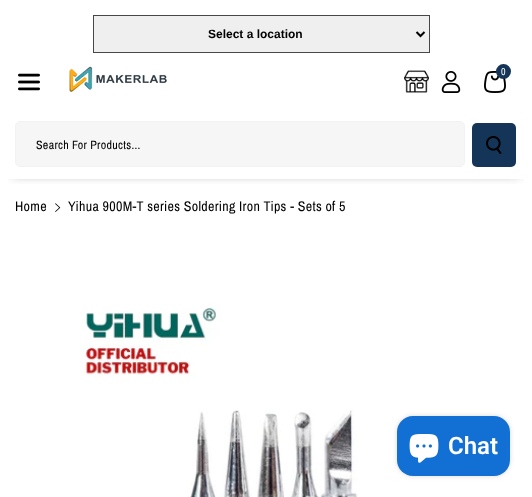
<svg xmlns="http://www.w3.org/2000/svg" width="532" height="497">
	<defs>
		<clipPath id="clip1"><rect x="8" y="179" width="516" height="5" /></clipPath>
	</defs>
	<rect width="100%" height="100%" fill="#FFFFFF" />
	<g clip-path="url(#clip1)">
		<rect x="12" y="32" width="508" height="141" fill="#121212" fill-opacity="0.6" filter="blur(6px)" />
	</g>
	<rect x="93.5" y="15.5" width="336" height="37" fill="#EFEFEF" stroke="#474747" />
	<path d="M416.5 32L420.5 36L424.5 32" fill="none" stroke="#000000" stroke-width="2" />
	<text x="208" y="38" font-family="Liberation Sans" font-size="12" font-weight="700" fill="#000000">Select a location</text>
	<image x="69" y="66" width="98" height="26" href="assets/img1.png" />
	<image x="404" y="70" width="25" height="23" href="assets/img2.png" />
	<image x="441" y="71" width="20" height="22" href="assets/img3.png" />
	<image x="484" y="71" width="22" height="22" href="assets/img4.png" />
	<circle cx="503.5" cy="71.5" r="7.5" fill="#153558" />
	<text x="501" y="75" font-family="Archivo Narrow" font-size="10" letter-spacing="0.3" fill="#FFFFFF">0</text>
	<image x="18" y="73" width="22" height="18" href="assets/img5.png" />
	<rect x="16" y="122" width="448" height="44" rx="4" fill="#F7F6F6" />
	<rect x="15.5" y="121.5" width="449" height="45" rx="4.5" fill="none" stroke="#F2F2F2" />
	<text x="36" y="149" font-family="Archivo Narrow" font-size="12" letter-spacing="0.3" fill="#000000">Search For Products...</text>
	<rect x="472" y="123" width="44" height="44" rx="5" fill="#153558" />
	<image x="486" y="136" width="16" height="18" href="assets/img6.png" />
	<text x="15" y="211" font-family="Archivo Narrow" font-size="14" letter-spacing="0.3" fill="#000000">Home</text>
	<image x="55" y="203" width="6" height="9" href="assets/img7.png" />
	<text x="68" y="211" font-family="Archivo Narrow" font-size="14" letter-spacing="0.3" fill="#000000">Yihua 900M-T series Soldering Iron Tips - Sets of 5</text>
	<image x="81" y="307" width="277" height="190" href="assets/img8.png" />
	<rect x="397" y="416" width="113" height="60" rx="16" fill="#000000" fill-opacity="0.15" filter="blur(2.5px)" />
	<rect x="397" y="416" width="113" height="60" rx="16" fill="#126FD3" />
	<image x="409" y="434" width="30" height="29" href="assets/img9.png" />
	<text x="448" y="454" font-family="Roboto" font-size="24" font-weight="600" fill="#FFFFFF">Chat</text>
</svg>
